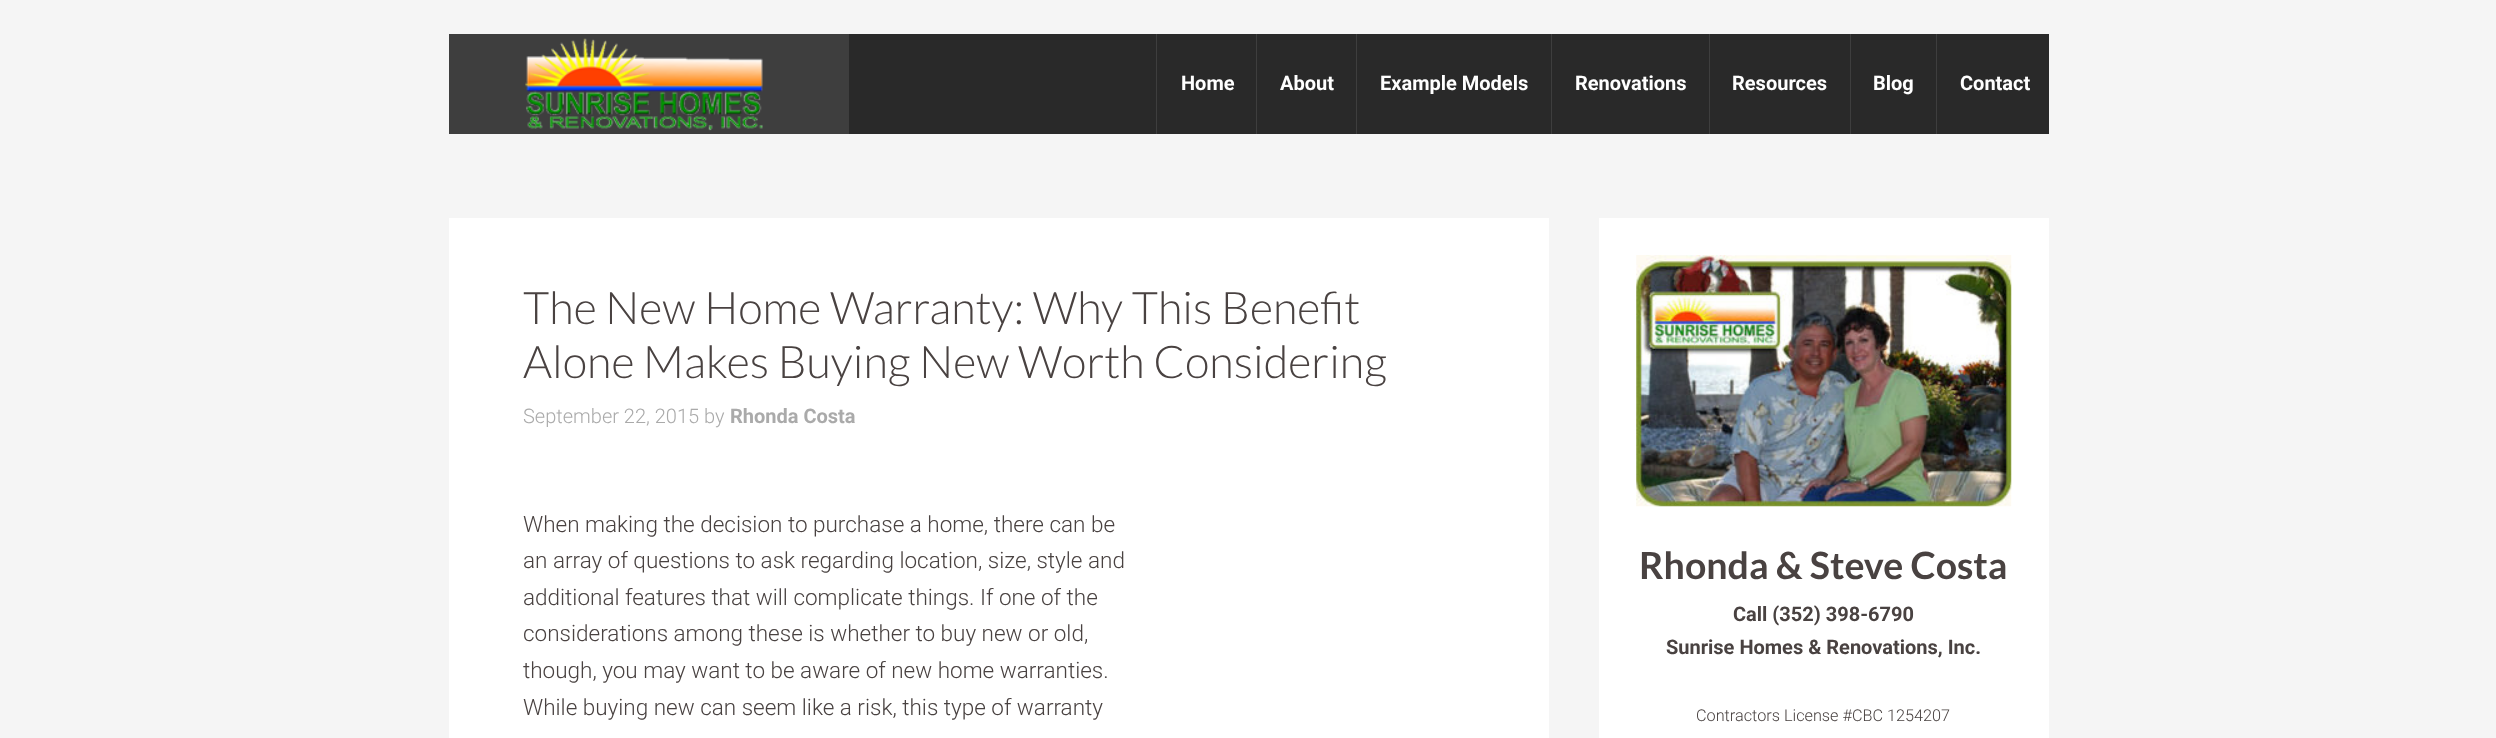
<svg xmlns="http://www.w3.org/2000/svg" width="2496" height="738">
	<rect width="100%" height="100%" fill="#F5F5F5" />
	<rect x="849" y="34" width="1200" height="100" fill="#292929" />
	<rect x="449" y="34" width="400" height="100" fill="#3E3E3E" />
	<image x="525" y="38" width="238" height="93" href="assets/img1.png" />
	<rect x="1156" y="34" width="1" height="100" fill="#3E3E3E" />
	<text x="1181" y="90" font-family="Roboto" font-size="20" font-weight="700" fill="#FFFFFF">Home</text>
	<rect x="1256" y="34" width="1" height="100" fill="#3E3E3E" />
	<text x="1280" y="90" font-family="Roboto" font-size="20" font-weight="700" fill="#FFFFFF">About</text>
	<rect x="1356" y="34" width="1" height="100" fill="#3E3E3E" />
	<text x="1380" y="90" font-family="Roboto" font-size="20" font-weight="700" fill="#FFFFFF">Example Models</text>
	<rect x="1551" y="34" width="1" height="100" fill="#3E3E3E" />
	<text x="1575" y="90" font-family="Roboto" font-size="20" font-weight="700" fill="#FFFFFF">Renovations</text>
	<rect x="1709" y="34" width="1" height="100" fill="#3E3E3E" />
	<text x="1732" y="90" font-family="Roboto" font-size="20" font-weight="700" fill="#FFFFFF">Resources</text>
	<rect x="1850" y="34" width="1" height="100" fill="#3E3E3E" />
	<text x="1873" y="90" font-family="Roboto" font-size="20" font-weight="700" fill="#FFFFFF">Blog</text>
	<rect x="1936" y="34" width="1" height="100" fill="#3E3E3E" />
	<text x="1960" y="90" font-family="Roboto" font-size="20" font-weight="700" fill="#FFFFFF">Contact</text>
	<rect x="449" y="218" width="1100" height="520" fill="#FFFFFF" />
	<g font-family="Lato" font-size="45" font-weight="300" fill="#494241">
		<text x="523" y="324">The New Home Warranty: Why This Benefit</text>
		<text x="523" y="378">Alone Makes Buying New Worth Considering</text>
	</g>
	<text x="523" y="423" font-family="Roboto" font-size="20" font-weight="300" fill="#AAAAAA">September 22, 2015 by</text>
	<text x="730" y="423" font-family="Roboto" font-size="20" font-weight="700" fill="#AAAAAA">Rhonda Costa</text>
	<g font-family="Roboto" font-size="22.5" font-weight="300" fill="#494241">
		<text x="523" y="532">When making the decision to purchase a home, there can be</text>
		<text x="523" y="568">an array of questions to ask regarding location, size, style and</text>
		<text x="523" y="605">additional features that will complicate things. If one of the</text>
		<text x="523" y="641">considerations among these is whether to buy new or old,</text>
		<text x="523" y="678">though, you may want to be aware of new home warranties.</text>
		<text x="523" y="715">While buying new can seem like a risk, this type of warranty</text>
	</g>
	<rect x="1599" y="218" width="450" height="520" fill="#FFFFFF" />
	<image x="1636" y="255" width="376" height="252" href="assets/img2.png" />
	<text x="1639" y="579" font-family="Lato" font-size="37.5" font-weight="700" fill="#494241">Rhonda &amp; Steve Costa</text>
	<g font-family="Roboto" font-size="20" font-weight="700" fill="#494241">
		<text x="1733" y="621">Call (352) 398-6790</text>
		<text x="1666" y="654">Sunrise Homes &amp; Renovations, Inc.</text>
	</g>
	<text x="1696" y="721" font-family="Roboto" font-size="16.25" font-weight="300" fill="#494241">Contractors License #CBC 1254207</text>
</svg>
